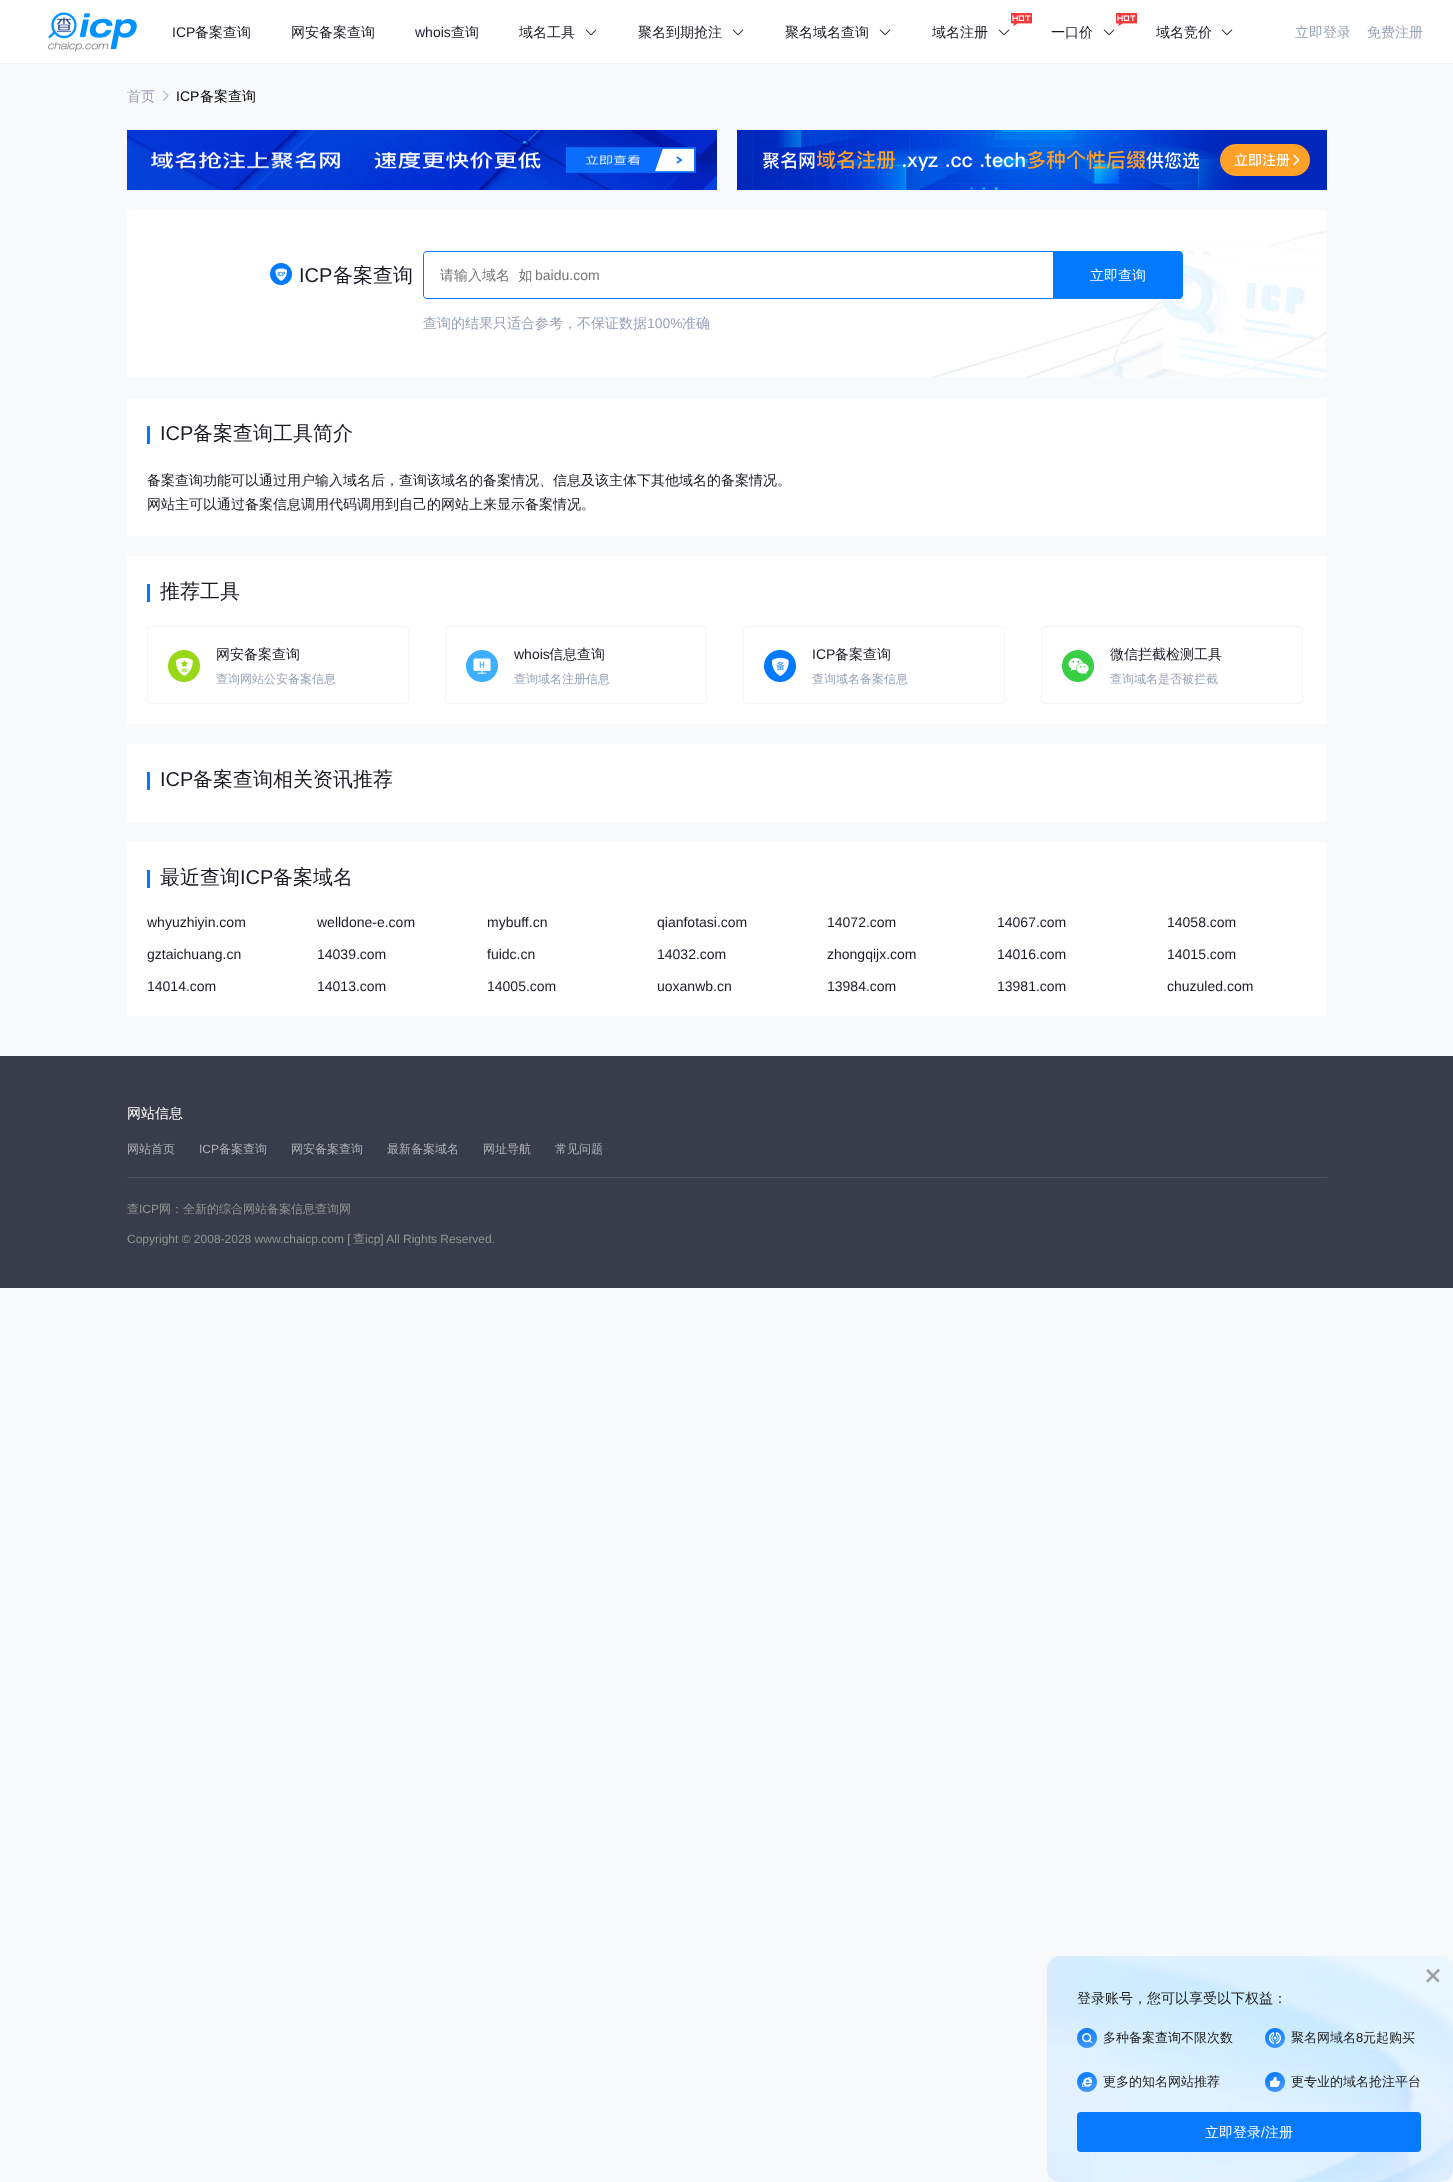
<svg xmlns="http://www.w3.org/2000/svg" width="1453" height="2182">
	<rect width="100%" height="100%" fill="#F8F9FB" />
	<rect x="0" y="0" width="1453" height="63" fill="#FFFFFF" />
	<rect x="0" y="63" width="1453" height="1" fill="#F2F3F5" />
	<image x="48" y="12" width="89" height="40" href="assets/img1.png" />
	<text x="172" y="37" font-family="Liberation Sans" font-size="14" fill="#191A24">ICP</text>
	<g font-family="WenQuanYi Zen Hei" font-size="14" font-weight="500" fill="#191A24">
		<text x="195" y="37">备案查询</text>
		<text x="291" y="37">网安备案查询</text>
	</g>
	<text x="415" y="37" font-family="Liberation Sans" font-size="14" fill="#191A24">whois</text>
	<g font-family="WenQuanYi Zen Hei" font-size="14" font-weight="500" fill="#191A24">
		<text x="451" y="37">查询</text>
		<text x="519" y="37">域名工具</text>
	</g>
	<image x="585" y="29" width="12" height="7" href="assets/img2.png" />
	<text x="638" y="37" font-family="WenQuanYi Zen Hei" font-size="14" font-weight="500" fill="#191A24">聚名到期抢注</text>
	<image x="732" y="29" width="12" height="7" href="assets/img2.png" />
	<text x="785" y="37" font-family="WenQuanYi Zen Hei" font-size="14" font-weight="500" fill="#191A24">聚名域名查询</text>
	<image x="879" y="29" width="12" height="7" href="assets/img2.png" />
	<image x="1011" y="13" width="21" height="13" href="assets/img3.png" />
	<text x="932" y="37" font-family="WenQuanYi Zen Hei" font-size="14" font-weight="500" fill="#191A24">域名注册</text>
	<image x="998" y="29" width="12" height="7" href="assets/img2.png" />
	<image x="1116" y="13" width="21" height="13" href="assets/img3.png" />
	<text x="1051" y="37" font-family="WenQuanYi Zen Hei" font-size="14" font-weight="500" fill="#191A24">一口价</text>
	<image x="1103" y="29" width="12" height="7" href="assets/img2.png" />
	<text x="1156" y="37" font-family="WenQuanYi Zen Hei" font-size="14" font-weight="500" fill="#191A24">域名竞价</text>
	<image x="1221" y="29" width="12" height="7" href="assets/img2.png" />
	<g font-family="WenQuanYi Zen Hei" font-size="14" font-weight="500" fill="#98A3B7">
		<text x="1295" y="37">立即登录</text>
		<text x="1367" y="37">免费注册</text>
		<text x="127" y="101">首页</text>
	</g>
	<image x="162" y="90" width="7" height="11" href="assets/img4.png" />
	<text x="176" y="101" font-family="Liberation Sans" font-size="14" fill="#000000">ICP</text>
	<text x="200" y="101" font-family="WenQuanYi Zen Hei" font-size="14" font-weight="500" fill="#000000">备案查询</text>
	<image x="127" y="130" width="590" height="60" href="assets/img5.png" />
	<image x="737" y="130" width="590" height="60" href="assets/img6.png" />
	<rect x="127" y="210" width="1200" height="168" rx="4" fill="#FFFFFF" />
	<image x="929" y="230" width="398" height="148" href="assets/img7.png" />
	<image x="270" y="263" width="22" height="22" href="assets/img8.png" />
	<text x="299" y="282" font-family="Liberation Sans" font-size="20" fill="#191A24">ICP</text>
	<text x="333" y="282" font-family="WenQuanYi Zen Hei" font-size="20" font-weight="500" fill="#191A24">备案查询</text>
	<path d="M427 251H1053V299H427C425 299 423 297 423 295V255C423 253 425 251 427 251ZM427 252H1053V298H427C425 298 424 297 424 295V255C424 253 425 252 427 252Z" fill="#017AFF" fill-rule="evenodd" />
	<text x="440" y="280" font-family="WenQuanYi Zen Hei" font-size="14" font-weight="500" fill="#757575" xml:space="preserve">请输入域名  如</text>
	<text x="535" y="280" font-family="Liberation Sans" font-size="14" fill="#757575">baidu.com</text>
	<path d="M1053 251H1179C1181 251 1183 253 1183 255V295C1183 297 1181 299 1179 299H1053Z" fill="#017AFF" />
	<text x="1090" y="280" font-family="WenQuanYi Zen Hei" font-size="14" font-weight="500" fill="#FFFFFF">立即查询</text>
	<text x="423" y="328" font-family="WenQuanYi Zen Hei" font-size="14" font-weight="500" fill="#98A3B7">查询的结果只适合参考，不保证数据</text>
	<text x="647" y="328" font-family="Liberation Sans" font-size="14" fill="#98A3B7">100%</text>
	<text x="682" y="328" font-family="WenQuanYi Zen Hei" font-size="14" font-weight="500" fill="#98A3B7">准确</text>
	<rect x="127" y="398" width="1200" height="138" fill="#FFFFFF" />
	<rect x="147" y="426" width="3" height="18" fill="#017AFF" />
	<text x="160" y="440" font-family="Liberation Sans" font-size="20" fill="#191A24">ICP</text>
	<text x="193" y="440" font-family="WenQuanYi Zen Hei" font-size="20" font-weight="500" fill="#191A24">备案查询工具简介</text>
	<g font-family="WenQuanYi Zen Hei" font-size="14" font-weight="500" fill="#191A24">
		<text x="147" y="485">备案查询功能可以通过用户输入域名后，查询该域名的备案情况、信息及该主体下其他域名的备案情况。</text>
		<text x="147" y="509">网站主可以通过备案信息调用代码调用到自己的网站上来显示备案情况。</text>
	</g>
	<rect x="127" y="556" width="1200" height="168" fill="#FFFFFF" />
	<rect x="147" y="584" width="3" height="18" fill="#017AFF" />
	<text x="160" y="598" font-family="WenQuanYi Zen Hei" font-size="20" font-weight="500" fill="#191A24">推荐工具</text>
	<rect x="147.5" y="626.5" width="261" height="77" rx="3.5" fill="none" stroke="#F5F5F5" />
	<image x="168" y="650" width="32" height="32" href="assets/img9.png" />
	<text x="216" y="659" font-family="WenQuanYi Zen Hei" font-size="14" font-weight="500" fill="#191A24">网安备案查询</text>
	<text x="216" y="683" font-family="WenQuanYi Zen Hei" font-size="12" font-weight="500" fill="#98A3B7">查询网站公安备案信息</text>
	<rect x="445.5" y="626.5" width="261" height="77" rx="3.5" fill="none" stroke="#F5F5F5" />
	<image x="466" y="650" width="32" height="32" href="assets/img10.png" />
	<text x="514" y="659" font-family="Liberation Sans" font-size="14" fill="#191A24">whois</text>
	<text x="549" y="659" font-family="WenQuanYi Zen Hei" font-size="14" font-weight="500" fill="#191A24">信息查询</text>
	<text x="514" y="683" font-family="WenQuanYi Zen Hei" font-size="12" font-weight="500" fill="#98A3B7">查询域名注册信息</text>
	<rect x="743.5" y="626.5" width="261" height="77" rx="3.5" fill="none" stroke="#F5F5F5" />
	<image x="764" y="650" width="32" height="32" href="assets/img11.png" />
	<text x="812" y="659" font-family="Liberation Sans" font-size="14" fill="#191A24">ICP</text>
	<text x="835" y="659" font-family="WenQuanYi Zen Hei" font-size="14" font-weight="500" fill="#191A24">备案查询</text>
	<text x="812" y="683" font-family="WenQuanYi Zen Hei" font-size="12" font-weight="500" fill="#98A3B7">查询域名备案信息</text>
	<rect x="1041.5" y="626.5" width="261" height="77" rx="3.5" fill="none" stroke="#F5F5F5" />
	<image x="1062" y="650" width="32" height="32" href="assets/img12.png" />
	<text x="1110" y="659" font-family="WenQuanYi Zen Hei" font-size="14" font-weight="500" fill="#191A24">微信拦截检测工具</text>
	<text x="1110" y="683" font-family="WenQuanYi Zen Hei" font-size="12" font-weight="500" fill="#98A3B7">查询域名是否被拦截</text>
	<rect x="127" y="744" width="1200" height="78" fill="#FFFFFF" />
	<rect x="147" y="772" width="3" height="18" fill="#017AFF" />
	<text x="160" y="786" font-family="Liberation Sans" font-size="20" fill="#191A24">ICP</text>
	<text x="193" y="786" font-family="WenQuanYi Zen Hei" font-size="20" font-weight="500" fill="#191A24">备案查询相关资讯推荐</text>
	<rect x="127" y="842" width="1200" height="174" fill="#FFFFFF" />
	<rect x="147" y="870" width="3" height="18" fill="#017AFF" />
	<text x="160" y="884" font-family="WenQuanYi Zen Hei" font-size="20" font-weight="500" fill="#191A24">最近查询</text>
	<text x="240" y="884" font-family="Liberation Sans" font-size="20" fill="#191A24">ICP</text>
	<text x="273" y="884" font-family="WenQuanYi Zen Hei" font-size="20" font-weight="500" fill="#191A24">备案域名</text>
	<g font-family="Liberation Sans" font-size="14" fill="#191A24">
		<text x="147" y="927">whyuzhiyin.com</text>
		<text x="317" y="927">welldone-e.com</text>
		<text x="487" y="927">mybuff.cn</text>
		<text x="657" y="927">qianfotasi.com</text>
		<text x="827" y="927">14072.com</text>
		<text x="997" y="927">14067.com</text>
		<text x="1167" y="927">14058.com</text>
		<text x="147" y="959">gztaichuang.cn</text>
		<text x="317" y="959">14039.com</text>
		<text x="487" y="959">fuidc.cn</text>
		<text x="657" y="959">14032.com</text>
		<text x="827" y="959">zhongqijx.com</text>
		<text x="997" y="959">14016.com</text>
		<text x="1167" y="959">14015.com</text>
		<text x="147" y="991">14014.com</text>
		<text x="317" y="991">14013.com</text>
		<text x="487" y="991">14005.com</text>
		<text x="657" y="991">uoxanwb.cn</text>
		<text x="827" y="991">13984.com</text>
		<text x="997" y="991">13981.com</text>
		<text x="1167" y="991">chuzuled.com</text>
	</g>
	<rect x="0" y="1056" width="1453" height="232" fill="#393C4A" />
	<rect x="127" y="1177" width="1200" height="1" fill="#4D505C" />
	<text x="127" y="1118" font-family="WenQuanYi Zen Hei" font-size="14" font-weight="500" fill="#FFFFFF">网站信息</text>
	<text x="127" y="1153" font-family="WenQuanYi Zen Hei" font-size="12" font-weight="500" fill="#B0B1B7">网站首页</text>
	<text x="199" y="1153" font-family="Liberation Sans" font-size="12" fill="#B0B1B7">ICP</text>
	<g font-family="WenQuanYi Zen Hei" font-size="12" font-weight="500" fill="#B0B1B7">
		<text x="219" y="1153">备案查询</text>
		<text x="291" y="1153">网安备案查询</text>
		<text x="387" y="1153">最新备案域名</text>
		<text x="483" y="1153">网址导航</text>
		<text x="555" y="1153">常见问题</text>
	</g>
	<text x="127" y="1213" font-family="WenQuanYi Zen Hei" font-size="12" font-weight="500" fill="#949494">查</text>
	<text x="139" y="1213" font-family="Liberation Sans" font-size="12" fill="#949494">ICP</text>
	<text x="159" y="1213" font-family="WenQuanYi Zen Hei" font-size="12" font-weight="500" fill="#949494">网：全新的综合网站备案信息查询网</text>
	<text x="127" y="1243" font-family="Liberation Sans" font-size="12" fill="#949494">Copyright © 2008-2028 www.chaicp.com [</text>
	<text x="353" y="1243" font-family="WenQuanYi Zen Hei" font-size="12" font-weight="500" fill="#949494">查</text>
	<text x="365" y="1243" font-family="Liberation Sans" font-size="12" fill="#949494">icp] All Rights Reserved.</text>
	<image x="1047" y="1956" width="406" height="226" href="assets/img13.png" />
	<image x="1426" y="1968" width="14" height="15" href="assets/img14.png" />
	<text x="1077" y="2003" font-family="WenQuanYi Zen Hei" font-size="14" font-weight="500" fill="#222222">登录账号，您可以享受以下权益：</text>
	<image x="1077" y="2028" width="20" height="20" href="assets/img15.png" />
	<text x="1103" y="2042" font-family="WenQuanYi Zen Hei" font-size="13" font-weight="500" fill="#222222">多种备案查询不限次数</text>
	<image x="1265" y="2028" width="20" height="20" href="assets/img16.png" />
	<text x="1291" y="2042" font-family="WenQuanYi Zen Hei" font-size="13" font-weight="500" fill="#222222">聚名网域名</text>
	<text x="1356" y="2042" font-family="Liberation Sans" font-size="13" fill="#222222">8</text>
	<text x="1363" y="2042" font-family="WenQuanYi Zen Hei" font-size="13" font-weight="500" fill="#222222">元起购买</text>
	<image x="1077" y="2072" width="20" height="20" href="assets/img17.png" />
	<text x="1103" y="2086" font-family="WenQuanYi Zen Hei" font-size="13" font-weight="500" fill="#222222">更多的知名网站推荐</text>
	<image x="1265" y="2072" width="20" height="20" href="assets/img18.png" />
	<text x="1291" y="2086" font-family="WenQuanYi Zen Hei" font-size="13" font-weight="500" fill="#222222">更专业的域名抢注平台</text>
	<rect x="1077" y="2112" width="344" height="40" rx="4" fill="#087AFF" />
	<text x="1205" y="2137" font-family="WenQuanYi Zen Hei" font-size="14" font-weight="500" fill="#FFFFFF">立即登录</text>
	<text x="1261" y="2137" font-family="Liberation Sans" font-size="14" fill="#FFFFFF">/</text>
	<text x="1265" y="2137" font-family="WenQuanYi Zen Hei" font-size="14" font-weight="500" fill="#FFFFFF">注册</text>
</svg>
